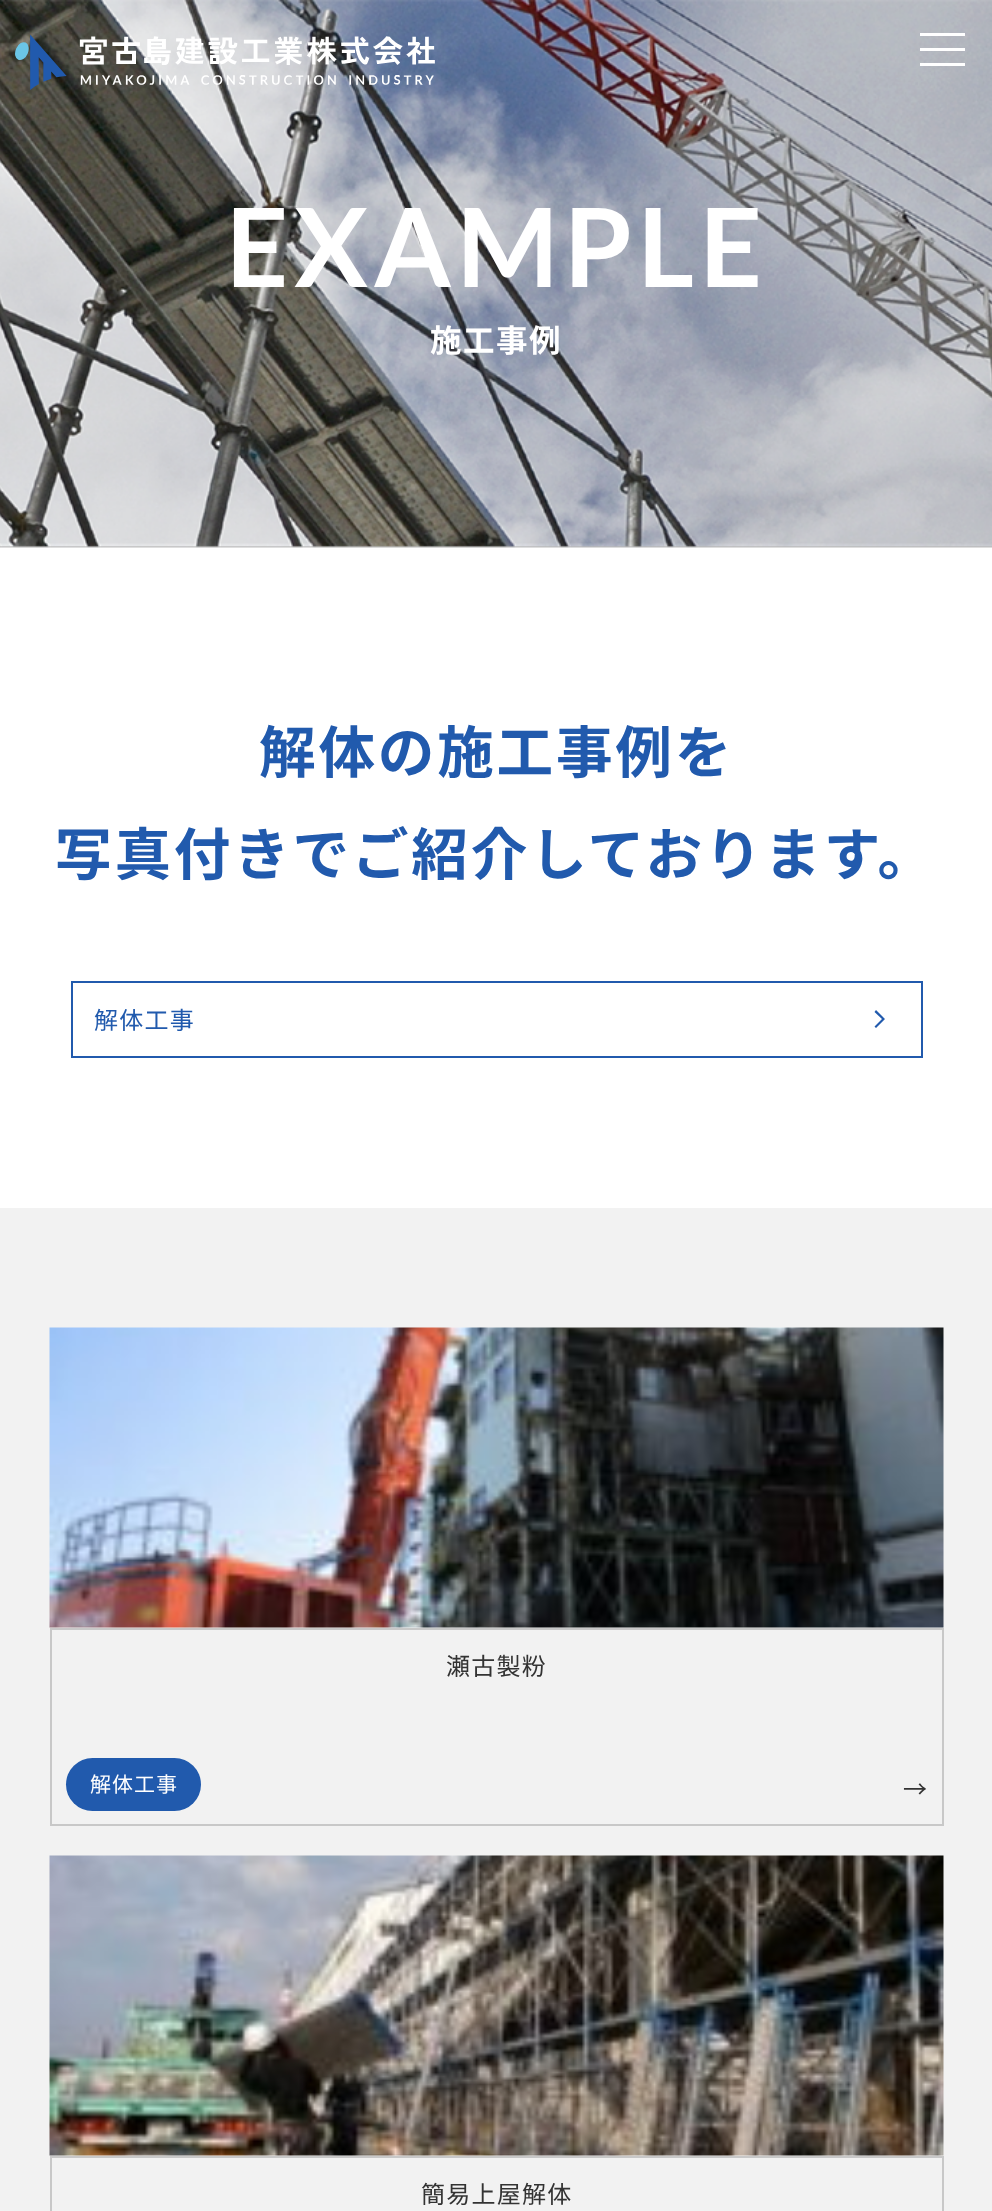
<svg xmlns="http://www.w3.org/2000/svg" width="992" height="2211">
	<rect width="100%" height="100%" fill="#FFFFFF" />
	<image x="0" y="0" width="992" height="548" href="assets/img2.png" />
	<image x="15" y="35" width="420" height="55" href="assets/img1.png" />
	<rect x="920" y="33" width="45" height="3" fill="#FFFFFF" />
	<rect x="920" y="48" width="45" height="3" fill="#FFFFFF" />
	<rect x="920" y="63" width="45" height="3" fill="#FFFFFF" />
	<text x="226" y="287" font-family="Lato" font-size="109.25" font-weight="700" letter-spacing="5.5" fill="#FFFFFF">EXAMPLE</text>
	<text x="430" y="352" font-family="Noto Sans JP" font-size="31.5" font-weight="700" letter-spacing="1.5" fill="#FFFFFF">施工事例</text>
	<g font-family="Noto Sans JP" font-size="56.6" font-weight="700" letter-spacing="2.8" fill="#215AAD">
		<text x="259" y="773">解体の施工事例を</text>
		<text x="55" y="875">写真付きでご紹介しております。</text>
	</g>
	<rect x="72" y="982" width="850" height="75" fill="none" stroke="#215AAD" stroke-width="2" />
	<text x="94" y="1029" font-family="Noto Sans JP" font-size="24" letter-spacing="1.25" fill="#215AAD">解体工事</text>
	<path d="M885 1019L876 1028L874.5 1026.5L882 1019L874.5 1012L876 1010Z" fill="#215AAD" />
	<rect x="0" y="1208" width="992" height="1003" fill="#F2F2F2" />
	<image x="49" y="1327" width="895" height="301" href="assets/img3.png" />
	<rect x="51" y="1629" width="892" height="196" fill="none" stroke="#C8C8C8" stroke-width="2" />
	<text x="446" y="1675" font-family="Noto Sans JP" font-size="24" letter-spacing="1.25" fill="#333333">瀬古製粉</text>
	<rect x="66" y="1758" width="135" height="53" rx="26.5" fill="#215AAD" />
	<text x="90" y="1792" font-family="Noto Sans JP" font-size="21" letter-spacing="1" fill="#FFFFFF">解体工事</text>
	<text x="903" y="1798" font-family="Noto Sans JP" font-size="24" letter-spacing="1.25" fill="#333333">→</text>
	<image x="49" y="1855" width="895" height="301" href="assets/img4.png" />
	<rect x="51" y="2157" width="892" height="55" fill="none" stroke="#C8C8C8" stroke-width="2" />
	<text x="421" y="2203" font-family="Noto Sans JP" font-size="24" letter-spacing="1.25" fill="#333333">簡易上屋解体</text>
</svg>
